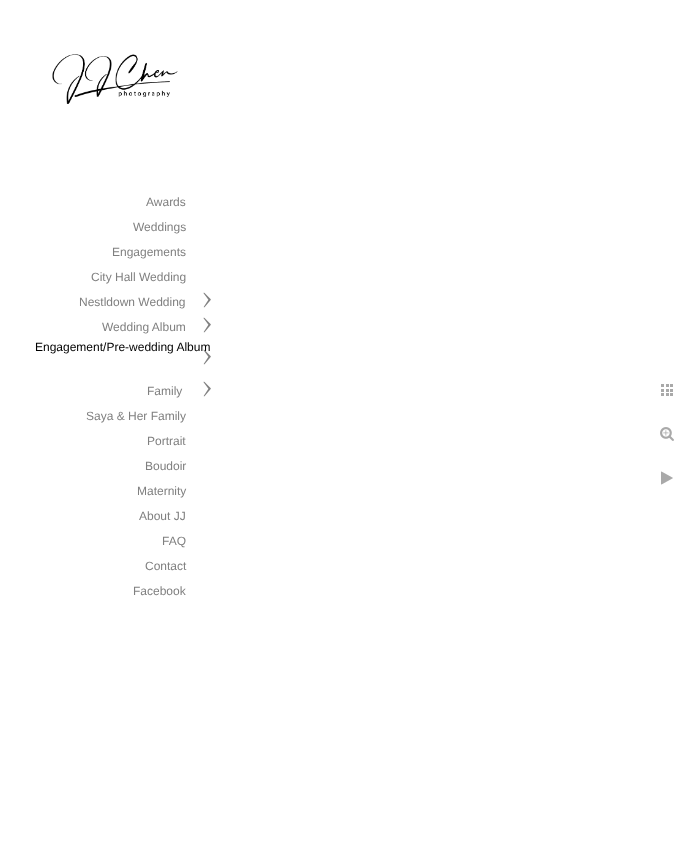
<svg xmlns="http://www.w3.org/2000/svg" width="694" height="848">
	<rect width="100%" height="100%" fill="#FFFFFF" />
	<image x="52" y="54" width="126" height="50" href="assets/img1.png" />
	<g font-family="Liberation Sans" font-size="12" fill="#808080">
		<text x="146" y="206">Awards</text>
		<text x="133" y="231">Weddings</text>
		<text x="112" y="256">Engagements</text>
		<text x="91" y="281">City Hall Wedding</text>
		<text x="79" y="306">Nestldown Wedding</text>
	</g>
	<image x="203" y="292" width="8" height="16" href="assets/img2.png" />
	<text x="102" y="331" font-family="Liberation Sans" font-size="12" fill="#808080">Wedding Album</text>
	<image x="203" y="317" width="8" height="16" href="assets/img2.png" />
	<text x="35" y="351" font-family="Liberation Sans" font-size="12" fill="#000000">Engagement/Pre-wedding Album</text>
	<image x="203" y="349" width="8" height="16" href="assets/img3.png" />
	<text x="147" y="395" font-family="Liberation Sans" font-size="12" fill="#808080">Family</text>
	<image x="203" y="381" width="8" height="16" href="assets/img2.png" />
	<g font-family="Liberation Sans" font-size="12" fill="#808080">
		<text x="86" y="420">Saya &amp; Her Family</text>
		<text x="147" y="445">Portrait</text>
		<text x="145" y="470">Boudoir</text>
		<text x="137" y="495">Maternity</text>
		<text x="139" y="520">About JJ</text>
		<text x="162" y="545">FAQ</text>
		<text x="145" y="570">Contact</text>
		<text x="133" y="595">Facebook</text>
	</g>
	<image x="661" y="384" width="12" height="12" href="assets/img4.png" />
	<image x="660" y="427" width="14" height="14" href="assets/img5.png" />
	<image x="661" y="471" width="12" height="14" href="assets/img6.png" />
</svg>
